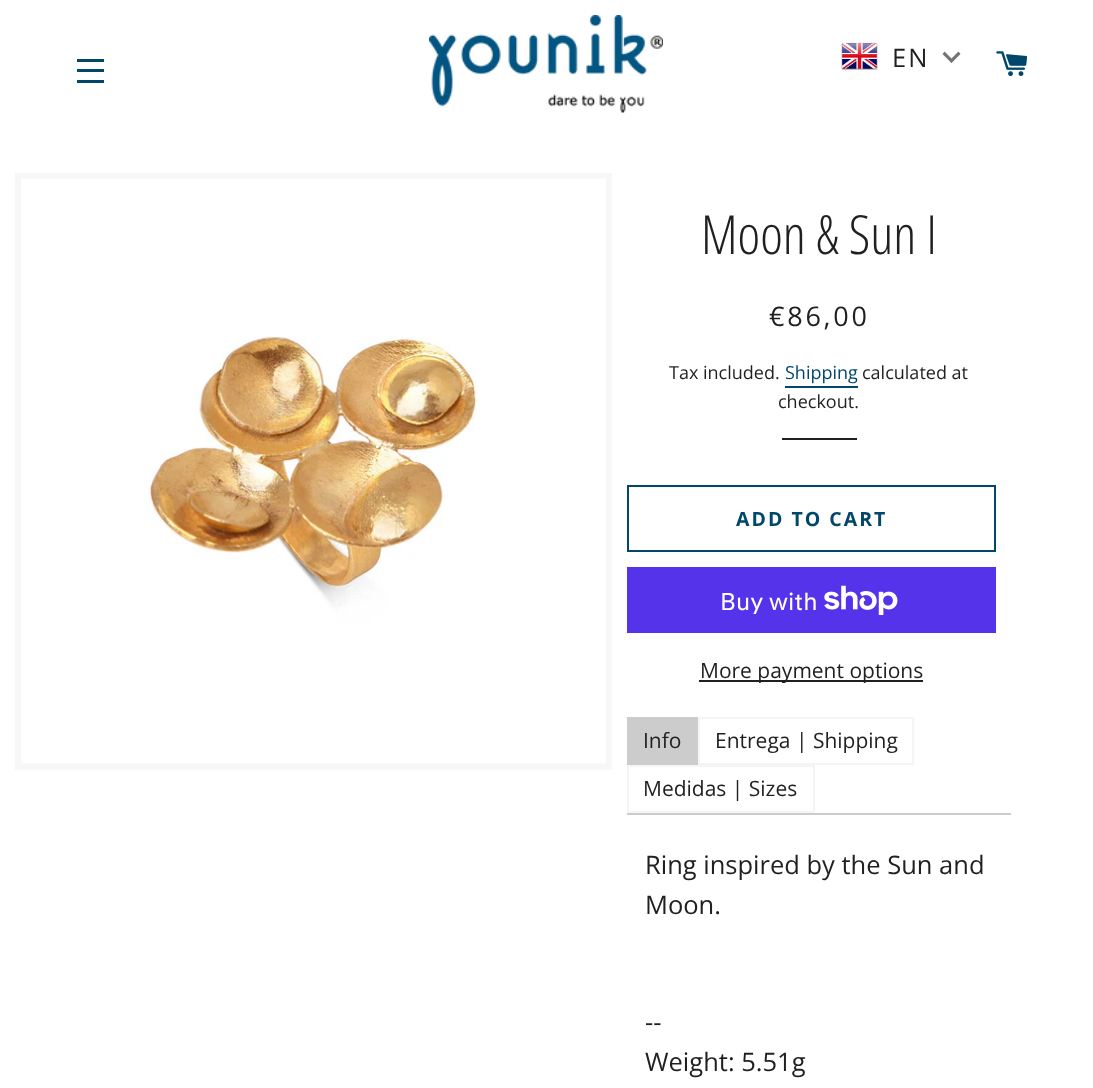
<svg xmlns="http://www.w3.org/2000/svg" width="1093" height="1088">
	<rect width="100%" height="100%" fill="#FFFFFF" />
	<rect x="77" y="59" width="27" height="3" fill="#00476B" />
	<rect x="77" y="69" width="27" height="3" fill="#00476B" />
	<rect x="77" y="80" width="27" height="3" fill="#00476B" />
	<image x="429" y="15" width="234" height="98" href="assets/img1.png" />
	<image x="841" y="42" width="37" height="28" href="assets/img2.png" />
	<text x="892" y="67" font-family="Open Sans" font-size="25.5" letter-spacing="2" fill="#1F2021">EN</text>
	<path d="M958.5 51.5L960.5 54L951.5 63L949.5 60.5Z" fill="#747474" />
	<path d="M944.5 51.5L953.5 60.5L951.5 63L942.5 54Z" fill="#747474" />
	<image x="996" y="51" width="32" height="25" href="assets/img3.png" />
	<rect x="16.5" y="174.5" width="594" height="594" fill="none" stroke="#F7F7F7" stroke-width="3" />
	<rect x="19.5" y="177.5" width="588" height="588" fill="none" stroke="#F7F7F7" stroke-width="3" />
	<rect x="21" y="763" width="585" height="1" fill="#F6F6F6" />
	<image x="21" y="178" width="585" height="586" href="assets/img4.png" />
	<text x="701" y="254" font-family="Open Sans Condensed" font-size="54" font-weight="300" fill="#1F2021">Moon &amp; Sun I</text>
	<text x="769" y="326" font-family="Open Sans" font-size="27" letter-spacing="2.75" fill="#1F2021">€86,00</text>
	<text x="669" y="379" font-family="Open Sans" font-size="18" fill="#1F2021">Tax included.</text>
	<text x="785" y="379" font-family="Open Sans" font-size="18" fill="#00476B">Shipping</text>
	<rect x="785" y="386" width="73" height="2" fill="#00476B" />
	<g font-family="Open Sans" font-size="18" fill="#1F2021">
		<text x="862" y="379">calculated at</text>
		<text x="778" y="408">checkout.</text>
	</g>
	<rect x="782" y="438" width="75" height="2" fill="#1F2021" />
	<rect x="628" y="486" width="367" height="65" fill="none" stroke="#00476B" stroke-width="2" />
	<text x="736" y="526" font-family="Open Sans" font-size="19.5" font-weight="700" letter-spacing="2" fill="#00476B">ADD TO CART</text>
	<rect x="627" y="567" width="369" height="66" fill="#5433EB" />
	<text x="720" y="610" font-family="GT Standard" font-size="24" fill="#FFFFFF">Buy with</text>
	<image x="824" y="585" width="74" height="30" href="assets/img5.png" />
	<rect x="699" y="680" width="224" height="2" fill="#1F2021" />
	<text x="700" y="678" font-family="Open Sans" font-size="21" fill="#1F2021">More payment options</text>
	<rect x="627" y="813" width="384" height="2" fill="#CCCCCC" />
	<rect x="627" y="717" width="71" height="48" fill="#CCCCCC" />
	<text x="643" y="748" font-family="Open Sans" font-size="21" fill="#1F2021">Info</text>
	<rect x="699" y="718" width="214" height="46" fill="none" stroke="#F5F5F5" stroke-width="2" />
	<text x="715" y="748" font-family="Open Sans" font-size="21" fill="#1F2021">Entrega | Shipping</text>
	<rect x="628" y="766" width="186" height="46" fill="none" stroke="#F5F5F5" stroke-width="2" />
	<text x="643" y="796" font-family="Open Sans" font-size="21" fill="#1F2021">Medidas | Sizes</text>
	<g font-family="Open Sans" font-size="25.5" fill="#1F2021">
		<text x="645" y="874">Ring inspired by the Sun and</text>
		<text x="645" y="914">Moon.</text>
		<text x="645" y="1031">--</text>
		<text x="645" y="1071">Weight: 5.51g</text>
	</g>
</svg>
